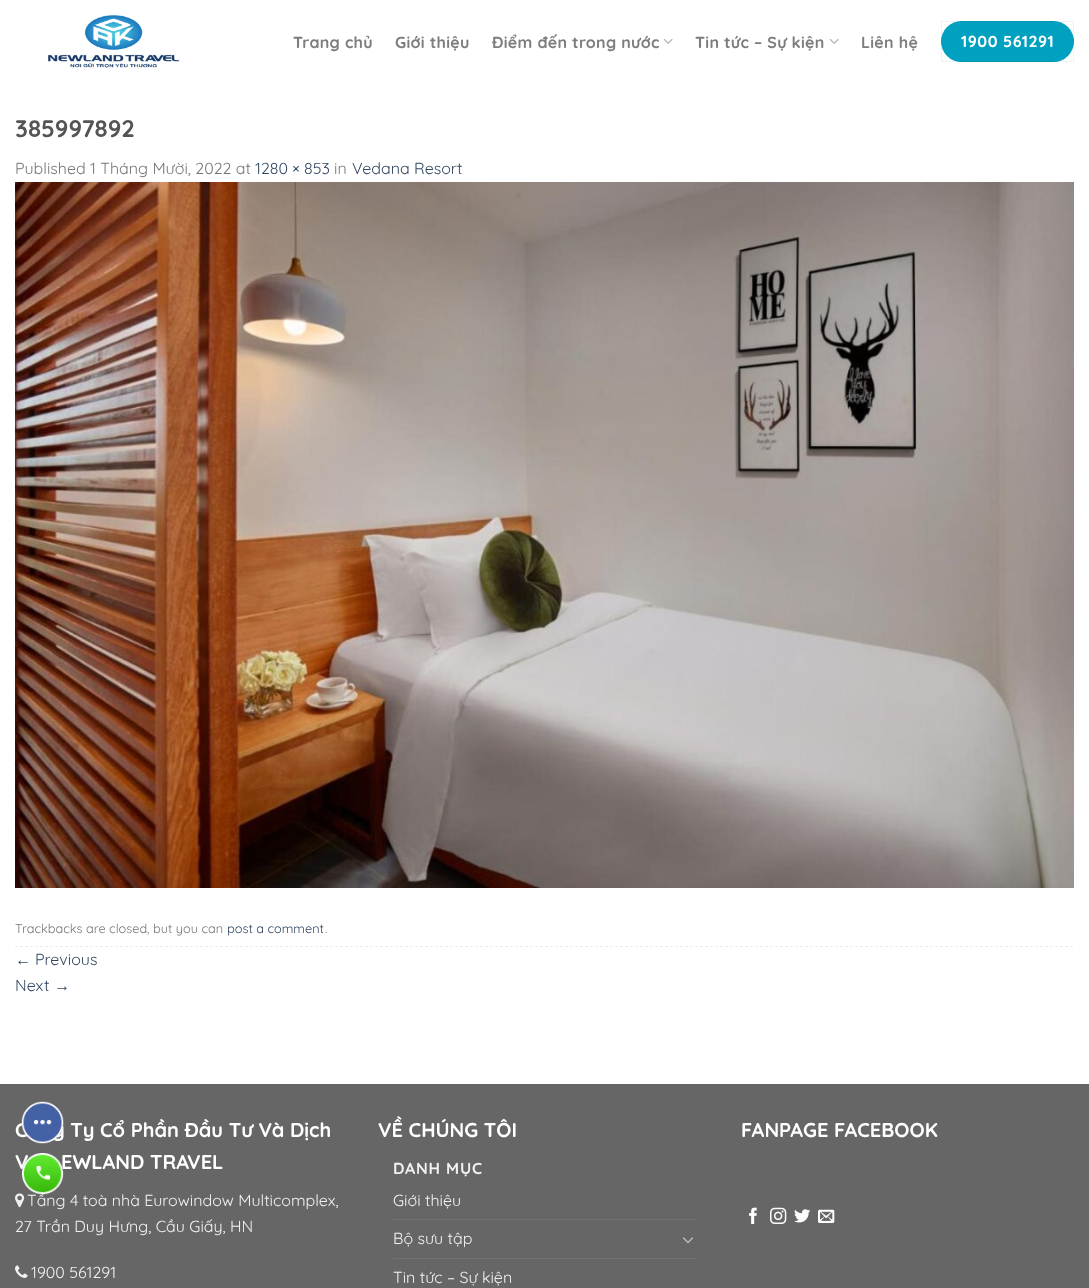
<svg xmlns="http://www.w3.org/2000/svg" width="1089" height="1288">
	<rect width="100%" height="100%" fill="#FFFFFF" />
	<image x="48" y="15" width="131" height="53" href="assets/img1.png" />
	<g font-family="Quicksand" font-size="16" font-weight="700" letter-spacing="0.3" fill="#7D7D7D">
		<text x="293" y="48">Trang chủ</text>
		<text x="395" y="48">Giới thiệu</text>
		<text x="492" y="48">Điểm đến trong nước</text>
	</g>
	<image x="663" y="38" width="10" height="6" href="assets/img2.png" />
	<text x="695" y="48" font-family="Quicksand" font-size="16" font-weight="700" letter-spacing="0.3" fill="#7D7D7D">Tin tức – Sự kiện</text>
	<image x="829" y="38" width="10" height="6" href="assets/img2.png" />
	<text x="861" y="48" font-family="Quicksand" font-size="16" font-weight="700" letter-spacing="0.3" fill="#7D7D7D">Liên hệ</text>
	<rect x="941" y="21" width="133" height="41" rx="20.5" fill="#00A1C0" />
	<rect x="941.5" y="21.5" width="132" height="40" fill="none" stroke="#000000" stroke-opacity="0.05" />
	<text x="961" y="47" font-family="Quicksand" font-size="16" font-weight="700" letter-spacing="0.5" fill="#FFFFFF">1900 561291</text>
	<text x="15" y="137" font-family="Quicksand" font-size="24" font-weight="700" fill="#555555">385997892</text>
	<text x="15" y="174" font-family="Quicksand" font-size="16" fill="#777777">Published 1 Tháng Mười, 2022 at</text>
	<text x="255" y="174" font-family="Quicksand" font-size="16" fill="#334862">1280 × 853</text>
	<text x="334" y="174" font-family="Quicksand" font-size="16" fill="#777777">in</text>
	<text x="352" y="174" font-family="Quicksand" font-size="16" fill="#334862">Vedana Resort</text>
	<image x="15" y="182" width="1059" height="706" href="assets/img3.png" />
	<path d="M15 946.5H1074" fill="none" stroke="#ECECEC" stroke-dasharray="3 2" />
	<text x="15" y="933" font-family="Quicksand" font-size="12.75" fill="#777777">Trackbacks are closed, but you can</text>
	<text x="227" y="933" font-family="Quicksand" font-size="12.75" fill="#334862">post a comment</text>
	<text x="325" y="933" font-family="Quicksand" font-size="12.75" fill="#777777">.</text>
	<text x="15" y="965" font-family="Liberation Sans" font-size="16" fill="#334862">←</text>
	<g font-family="Quicksand" font-size="16" fill="#334862">
		<text x="35" y="965">Previous</text>
		<text x="15" y="991">Next</text>
	</g>
	<text x="54" y="991" font-family="Liberation Sans" font-size="16" fill="#334862">→</text>
	<rect x="0" y="1084" width="1089" height="204" fill="#666666" />
	<g font-family="Quicksand" font-size="20" font-weight="700" fill="#FFFFFF">
		<text x="15" y="1137">C</text>
		<text x="52" y="1137">g Ty Cổ Phần Đầu Tư Và Dịch</text>
		<text x="15" y="1169">V</text>
		<text x="61" y="1169">EWLAND TRAVEL</text>
	</g>
	<image x="15" y="1193" width="10" height="15" href="assets/img4.png" />
	<g font-family="Quicksand" font-size="16" fill="#F1F1F1">
		<text x="27" y="1206">Tầng 4 toà nhà Eurowindow Multicomplex,</text>
		<text x="15" y="1232">27 Trần Duy Hưng, Cầu Giấy, HN</text>
	</g>
	<image x="15" y="1265" width="13" height="13" href="assets/img5.png" />
	<text x="31" y="1278" font-family="Quicksand" font-size="16" fill="#F1F1F1">1900 561291</text>
	<text x="378" y="1137" font-family="Quicksand" font-size="20" font-weight="700" fill="#FFFFFF">VỀ CHÚNG TÔI</text>
	<text x="393" y="1174" font-family="Quicksand" font-size="16" font-weight="700" letter-spacing="0.75" fill="#F1F1F1">DANH MỤC</text>
	<text x="393" y="1206" font-family="Quicksand" font-size="16" fill="#F1F1F1">Giới thiệu</text>
	<rect x="393" y="1219" width="303" height="1" fill="#727272" />
	<text x="393" y="1244" font-family="Quicksand" font-size="16" fill="#F1F1F1">Bộ sưu tập</text>
	<image x="682" y="1237" width="12" height="7" href="assets/img6.png" />
	<rect x="393" y="1258" width="303" height="1" fill="#727272" />
	<text x="393" y="1283" font-family="Quicksand" font-size="16" fill="#F1F1F1">Tin tức – Sự kiện</text>
	<text x="741" y="1137" font-family="Quicksand" font-size="20" font-weight="700" fill="#FFFFFF">FANPAGE FACEBOOK</text>
	<image x="749" y="1207" width="8" height="17" href="assets/img7.png" />
	<image x="770" y="1207" width="17" height="17" href="assets/img8.png" />
	<image x="794" y="1209" width="17" height="14" href="assets/img9.png" />
	<image x="818" y="1209" width="17" height="14" href="assets/img10.png" />
	<image x="21" y="1101" width="43" height="43" href="assets/img11.png" />
	<image x="21" y="1153" width="43" height="42" href="assets/img12.png" />
</svg>
